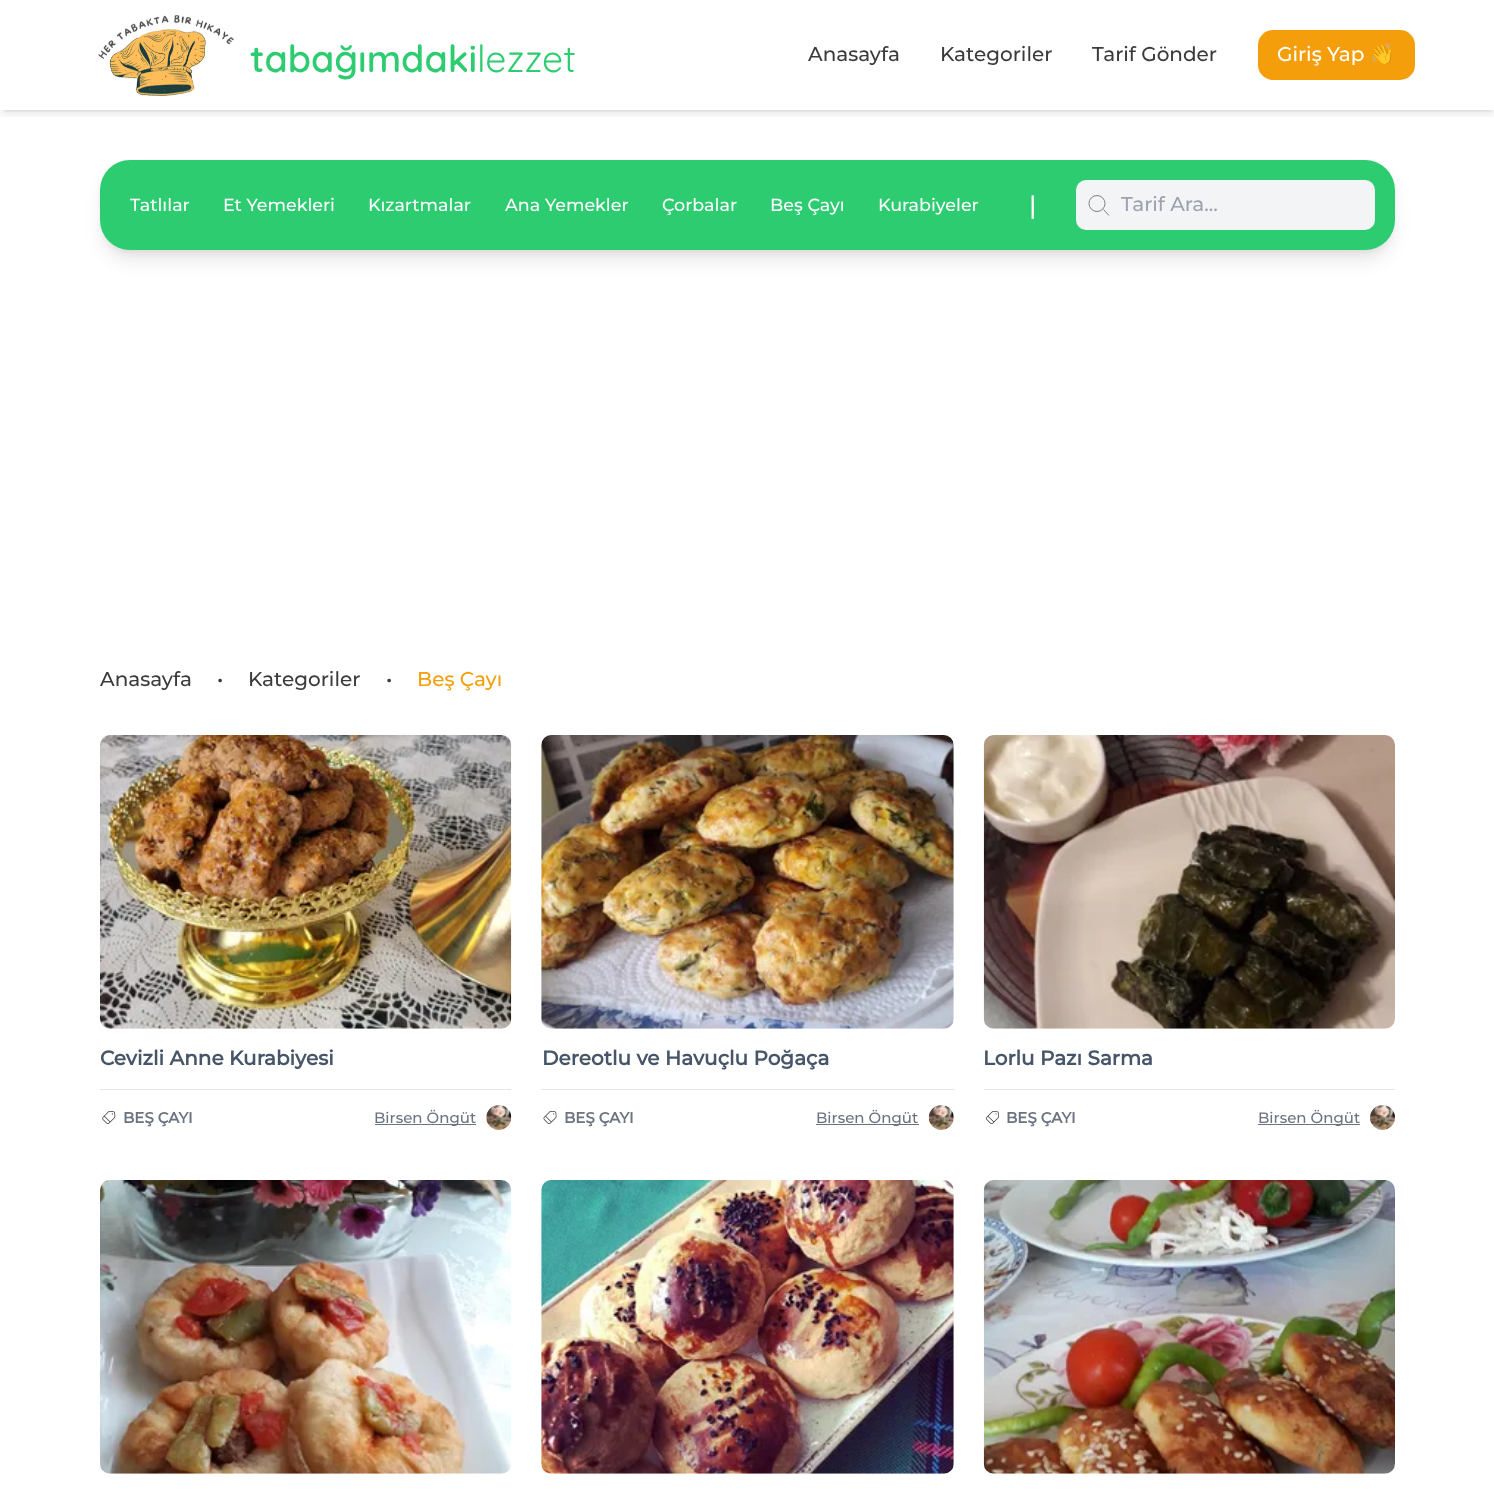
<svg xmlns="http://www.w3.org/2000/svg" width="1494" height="1494">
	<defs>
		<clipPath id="clip1"><rect x="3" y="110" width="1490" height="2" /></clipPath>
		<clipPath id="clip2"><rect x="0" y="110" width="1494" height="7" /></clipPath>
	</defs>
	<rect width="100%" height="100%" fill="#FFFFFF" />
	<g clip-path="url(#clip1)">
		<rect x="3" y="5" width="1490" height="105" fill="#000000" fill-opacity="0.1" filter="blur(2.5px)" />
	</g>
	<g clip-path="url(#clip2)">
		<rect x="1" y="6" width="1493" height="108" fill="#000000" fill-opacity="0.1" filter="blur(4px)" />
	</g>
	<image x="98" y="15" width="136" height="81" href="assets/img1.png" />
	<text x="250" y="72" font-family="Quicksand" font-size="37.5" font-weight="600" fill="#2ECC71">tabağımdaki</text>
	<text x="477" y="72" font-family="Quicksand" font-size="37.5" fill="#2ECC71">lezzet</text>
	<g font-family="Montserrat" font-size="20" font-weight="100" fill="#3B3B3B">
		<text x="808" y="61">Anasayfa</text>
		<text x="940" y="61">Kategoriler</text>
		<text x="1092" y="61">Tarif Gönder</text>
	</g>
	<rect x="1258" y="30" width="157" height="50" rx="15" fill="#F59E0B" />
	<text x="1277" y="61" font-family="Montserrat" font-size="20" font-weight="100" fill="#FFFFFF">Giriş Yap</text>
	<text x="1370" y="61" font-family="Noto Color Emoji" font-size="20" fill="#FFFFFF">👋</text>
	<rect x="105" y="170" width="1285" height="80" rx="25" fill="#000000" fill-opacity="0.1" filter="blur(4px)" />
	<rect x="104" y="176" width="1287" height="83" rx="26" fill="#000000" fill-opacity="0.1" filter="blur(9.5px)" />
	<rect x="100" y="160" width="1295" height="90" rx="30" fill="#2ECC71" />
	<g font-family="Montserrat" font-size="17.5" font-weight="100" fill="#FFFFFF">
		<text x="130" y="211">Tatlılar</text>
		<text x="223" y="211">Et Yemekleri</text>
		<text x="368" y="211">Kızartmalar</text>
		<text x="505" y="211">Ana Yemekler</text>
		<text x="662" y="211">Çorbalar</text>
		<text x="770" y="211">Beş Çayı</text>
		<text x="878" y="211">Kurabiyeler</text>
	</g>
	<text x="1029" y="214" font-family="Montserrat" font-size="25" font-weight="100" fill="#FFFFFF">|</text>
	<rect x="1076" y="180" width="299" height="50" rx="10" fill="#F3F4F6" />
	<circle cx="1097" cy="203.5" r="8" fill="none" stroke="#808080" />
	<path d="M1103.5 209.5L1109 215.5" fill="none" stroke="#808080" />
	<text x="1121" y="211" font-family="Montserrat" font-size="20" font-weight="100" fill="#9CA3AF">Tarif Ara...</text>
	<g font-family="Montserrat" font-size="20" font-weight="100" fill="#3B3B3B">
		<text x="100" y="686">Anasayfa</text>
		<text x="217" y="686">•</text>
		<text x="248" y="686">Kategoriler</text>
		<text x="386" y="686">•</text>
	</g>
	<text x="417" y="686" font-family="Montserrat" font-size="20" font-weight="100" fill="#F59E0B">Beş Çayı</text>
	<image x="100" y="735" width="412" height="294" href="assets/img2.png" />
	<text x="100" y="1065" font-family="Montserrat" font-size="20" font-weight="700" fill="#475569">Cevizli Anne Kurabiyesi</text>
	<rect x="100" y="1089" width="411" height="1" fill="#E5E7EB" />
	<image x="102" y="1111" width="14" height="13" href="assets/img3.png" />
	<text x="123" y="1123" font-family="Montserrat" font-size="15" font-weight="700" fill="#6B7280">BEŞ ÇAYI</text>
	<rect x="375" y="1124" width="101" height="1" fill="#6B7280" />
	<text x="374" y="1123" font-family="Montserrat" font-size="15" font-weight="100" fill="#6B7280">Birsen Öngüt</text>
	<image x="486" y="1105" width="26" height="25" href="assets/img4.png" />
	<image x="541" y="735" width="413" height="294" href="assets/img5.png" />
	<text x="542" y="1065" font-family="Montserrat" font-size="20" font-weight="700" fill="#475569">Dereotlu ve Havuçlu Poğaça</text>
	<rect x="541" y="1089" width="413" height="1" fill="#E5E7EB" />
	<image x="543" y="1111" width="14" height="13" href="assets/img6.png" />
	<text x="564" y="1123" font-family="Montserrat" font-size="15" font-weight="700" fill="#6B7280">BEŞ ÇAYI</text>
	<rect x="816" y="1124" width="103" height="1" fill="#6B7280" />
	<text x="816" y="1123" font-family="Montserrat" font-size="15" font-weight="100" fill="#6B7280">Birsen Öngüt</text>
	<image x="928" y="1105" width="26" height="25" href="assets/img7.png" />
	<image x="983" y="735" width="412" height="294" href="assets/img8.png" />
	<text x="983" y="1065" font-family="Montserrat" font-size="20" font-weight="700" fill="#475569">Lorlu Pazı Sarma</text>
	<rect x="984" y="1089" width="411" height="1" fill="#E5E7EB" />
	<image x="986" y="1111" width="13" height="13" href="assets/img9.png" />
	<text x="1006" y="1123" font-family="Montserrat" font-size="15" font-weight="700" fill="#6B7280">BEŞ ÇAYI</text>
	<rect x="1258" y="1124" width="102" height="1" fill="#6B7280" />
	<text x="1258" y="1123" font-family="Montserrat" font-size="15" font-weight="100" fill="#6B7280">Birsen Öngüt</text>
	<image x="1370" y="1105" width="25" height="25" href="assets/img10.png" />
	<image x="100" y="1180" width="412" height="294" href="assets/img11.png" />
	<image x="541" y="1180" width="413" height="294" href="assets/img12.png" />
	<image x="983" y="1180" width="412" height="294" href="assets/img13.png" />
</svg>
